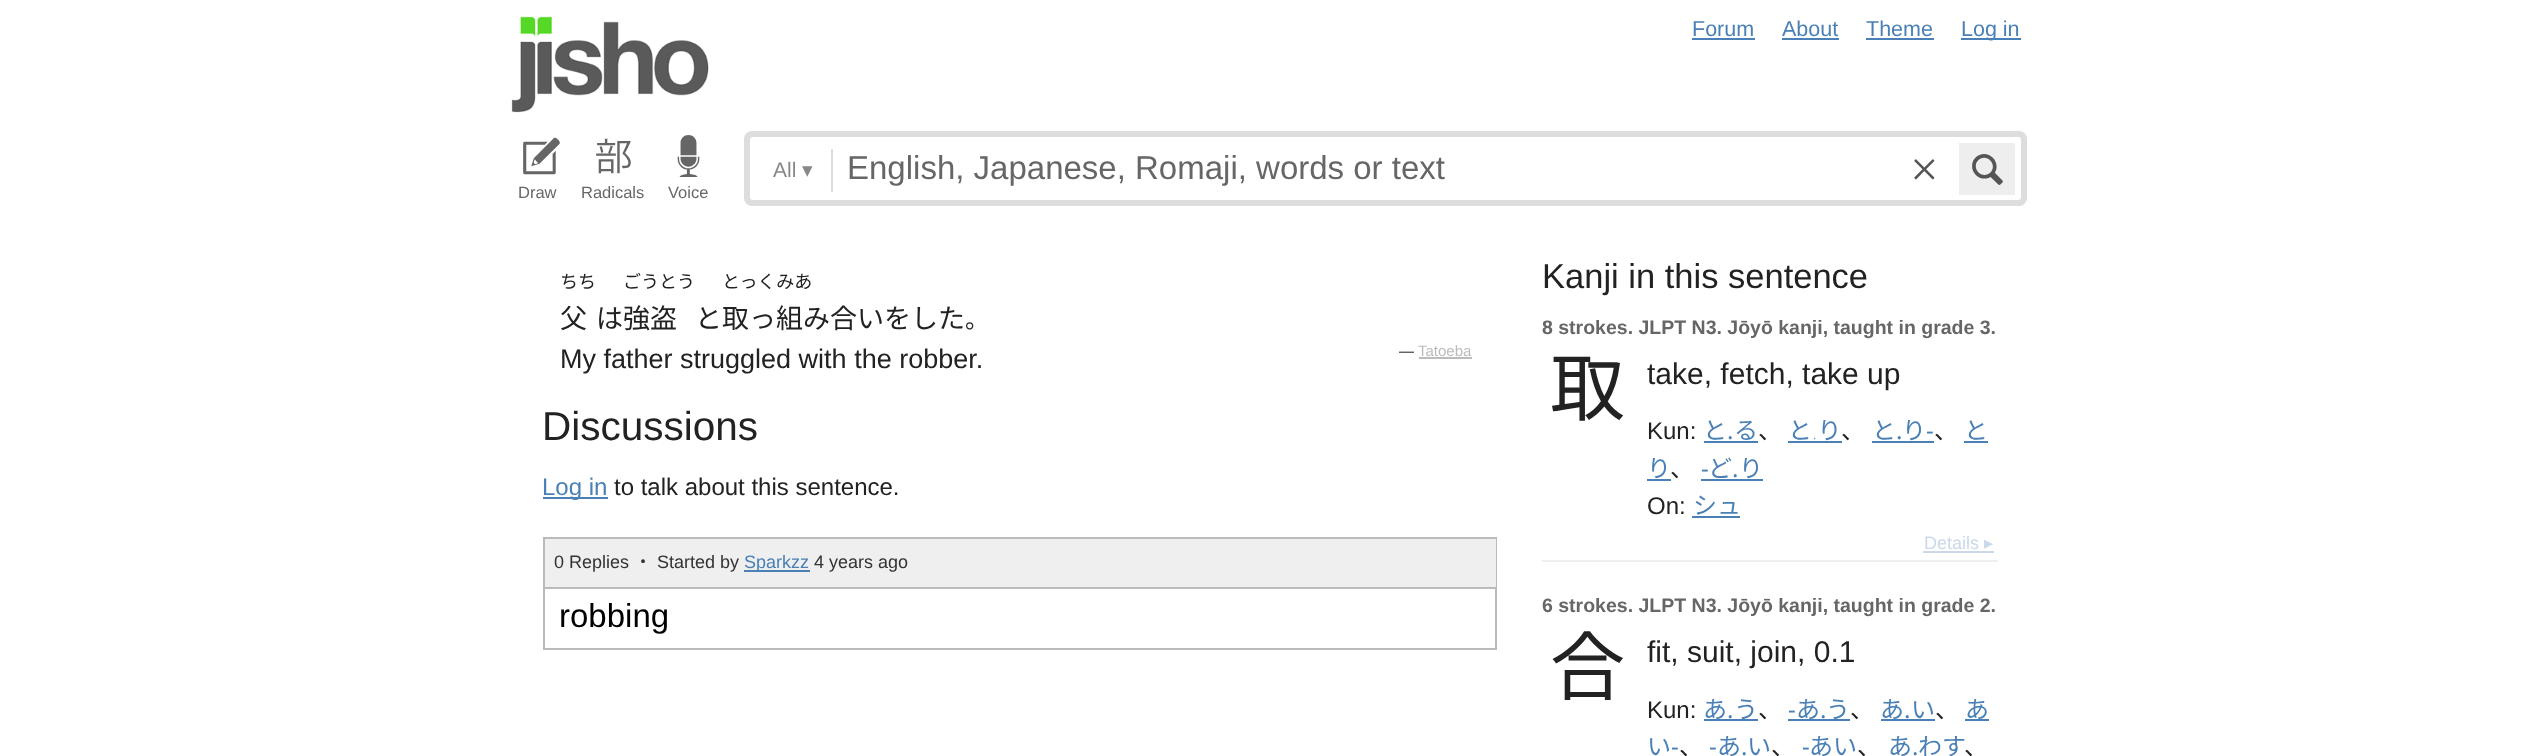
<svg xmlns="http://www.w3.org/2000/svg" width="2539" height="756">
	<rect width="100%" height="100%" fill="#FFFFFF" />
	<image x="511" y="16" width="198" height="97" href="assets/img1.png" />
	<text x="1692" y="36" font-family="Liberation Sans" font-size="21.5" fill="#4A80B5">Forum</text>
	<rect x="1692" y="38" width="63" height="2" fill="#4A80B5" />
	<text x="1782" y="36" font-family="Liberation Sans" font-size="21.5" fill="#4A80B5">About</text>
	<rect x="1782" y="38" width="57" height="2" fill="#4A80B5" />
	<text x="1866" y="36" font-family="Liberation Sans" font-size="21.5" fill="#4A80B5">Theme</text>
	<rect x="1866" y="38" width="68" height="2" fill="#4A80B5" />
	<rect x="1961" y="38" width="60" height="2" fill="#4A80B5" />
	<text x="1961" y="36" font-family="Liberation Sans" font-size="21.5" fill="#4A80B5">Log in</text>
	<rect x="744" y="131" width="1283" height="75" rx="8" fill="#DDDDDD" />
	<rect x="750" y="137" width="1271" height="63" rx="3" fill="#FFFFFF" />
	<rect x="831" y="149" width="2" height="43" fill="#DDDDDD" />
	<text x="773" y="177" font-family="Liberation Sans" font-size="21" fill="#888888">All</text>
	<text x="802" y="177" font-family="DejaVu Sans" font-size="21" fill="#888888">▾</text>
	<text x="847" y="179" font-family="Liberation Sans" font-size="33" fill="#666666">English, Japanese, Romaji, words or text</text>
	<image x="1914" y="159" width="21" height="21" href="assets/img2.png" />
	<path d="M1959 143H2013.5C2014.5 143 2015 143.5 2015 144.5V193.5C2015 194.5 2014.5 195 2013.5 195H1959Z" fill="#EEEEEE" />
	<image x="1972" y="154" width="31" height="31" href="assets/img3.png" />
	<image x="523" y="137" width="37" height="38" href="assets/img4.png" />
	<text x="518" y="198" font-family="Liberation Sans" font-size="16.5" fill="#666666">Draw</text>
	<image x="596" y="138" width="35" height="36" href="assets/img5.png" />
	<text x="581" y="198" font-family="Liberation Sans" font-size="16.5" fill="#666666">Radicals</text>
	<image x="677" y="135" width="23" height="42" href="assets/img6.png" />
	<text x="668" y="198" font-family="Liberation Sans" font-size="16.5" fill="#666666">Voice</text>
	<text x="560" y="288" font-family="Noto Sans CJK JP" font-size="18" fill="#222222">ちち</text>
	<text x="560" y="328" font-family="Noto Sans CJK JP" font-size="27" fill="#222222">父</text>
	<g font-family="Noto Sans CJK JP" font-size="18" fill="#222222">
		<text x="623" y="288">ごうとう</text>
		<text x="722" y="288">とっくみあ</text>
	</g>
	<g font-family="Noto Sans CJK JP" font-size="27" fill="#222222">
		<text x="596" y="328">は強盗</text>
		<text x="695" y="328">と取っ組み合いをした</text>
	</g>
	<text x="965" y="328" font-family="Noto Sans CJK JP" font-size="24" fill="#222222">。</text>
	<text x="560" y="368" font-family="Liberation Sans" font-size="27" fill="#222222">My father struggled with the robber.</text>
	<text x="1399" y="356" font-family="Liberation Sans" font-size="15" fill="#222222">—</text>
	<text x="1418" y="356" font-family="Liberation Sans" font-size="15" fill="#BBBBBB">Tatoeba</text>
	<rect x="1419" y="357" width="53" height="2" fill="#BBBBBB" />
	<text x="542" y="440" font-family="Liberation Sans" font-size="40.5" fill="#222222">Discussions</text>
	<rect x="543" y="497" width="65" height="2" fill="#4A80B5" />
	<text x="542" y="495" font-family="Liberation Sans" font-size="24" fill="#4A80B5">Log in</text>
	<text x="614" y="495" font-family="Liberation Sans" font-size="24" fill="#222222">to talk about this sentence.</text>
	<rect x="544" y="538" width="952" height="111" fill="none" stroke="#BBBBBB" stroke-width="2" />
	<rect x="545" y="539" width="951" height="48" fill="#EFEFEF" />
	<rect x="545" y="587" width="951" height="2" fill="#BBBBBB" />
	<text x="554" y="568" font-family="Liberation Sans" font-size="18" fill="#333333">0 Replies</text>
	<text x="634" y="568" font-family="Noto Sans CJK JP" font-size="18" fill="#333333">・</text>
	<text x="657" y="568" font-family="Liberation Sans" font-size="18" fill="#333333">Started by</text>
	<rect x="744" y="570" width="66" height="2" fill="#4A80B5" />
	<text x="744" y="568" font-family="Liberation Sans" font-size="18" fill="#4A80B5">Sparkzz</text>
	<text x="814" y="568" font-family="Liberation Sans" font-size="18" fill="#333333">4 years ago</text>
	<text x="559" y="627" font-family="Liberation Sans" font-size="33" fill="#000000">robbing</text>
	<text x="1542" y="288" font-family="Liberation Sans" font-size="34.5" fill="#222222">Kanji in this sentence</text>
	<rect x="1542" y="560" width="456" height="2" fill="#EEEEEE" />
	<text x="1542" y="334" font-family="Liberation Sans" font-size="19.5" font-weight="700" fill="#666666">8 strokes. JLPT N3. Jōyō kanji, taught in grade 3.</text>
	<text x="1550" y="415" font-family="Noto Sans CJK JP" font-size="75" fill="#222222">取</text>
	<text x="1647" y="384" font-family="Liberation Sans" font-size="30" fill="#222222">take, fetch, take up</text>
	<text x="1647" y="439" font-family="Liberation Sans" font-size="24" fill="#222222">Kun:</text>
	<g font-family="Noto Sans CJK JP" font-size="24" fill="#4A80B5">
		<text x="1703" y="439">と</text>
		<text x="1734" y="439">る</text>
		<text x="1788" y="439">と り</text>
		<text x="1872" y="439">と</text>
		<text x="1902" y="439">り</text>
	</g>
	<text x="1926" y="439" font-family="Noto Sans" font-size="24" fill="#4A80B5">-</text>
	<text x="1964" y="439" font-family="Noto Sans CJK JP" font-size="24" fill="#4A80B5">と</text>
	<rect x="1964" y="441" width="24" height="2" fill="#4A80B5" />
	<text x="1727" y="439" font-family="Noto Sans" font-size="24" fill="#4A80B5">.</text>
	<rect x="1704" y="441" width="54" height="2" fill="#4A80B5" />
	<text x="1758" y="439" font-family="Noto Sans CJK JP" font-size="24" fill="#222222">、</text>
	<text x="1812" y="439" font-family="Noto Sans" font-size="24" font-weight="100" fill="#4A80B5">.</text>
	<rect x="1788" y="441" width="54" height="2" fill="#4A80B5" />
	<text x="1841" y="439" font-family="Noto Sans CJK JP" font-size="24" fill="#222222">、</text>
	<text x="1896" y="439" font-family="Noto Sans" font-size="24" fill="#4A80B5">.</text>
	<rect x="1872" y="441" width="62" height="2" fill="#4A80B5" />
	<text x="1934" y="439" font-family="Noto Sans CJK JP" font-size="24" fill="#222222">、</text>
	<text x="1647" y="477" font-family="Noto Sans CJK JP" font-size="24" fill="#4A80B5">り</text>
	<text x="1701" y="477" font-family="Noto Sans" font-size="24" fill="#4A80B5">-</text>
	<g font-family="Noto Sans CJK JP" font-size="24" fill="#4A80B5">
		<text x="1708" y="477">ど</text>
		<text x="1739" y="477">り</text>
	</g>
	<text x="1670" y="477" font-family="Noto Sans CJK JP" font-size="24" fill="#222222">、</text>
	<rect x="1647" y="479" width="24" height="2" fill="#4A80B5" />
	<text x="1732" y="477" font-family="Noto Sans" font-size="24" fill="#4A80B5">.</text>
	<rect x="1701" y="479" width="62" height="2" fill="#4A80B5" />
	<text x="1647" y="514" font-family="Liberation Sans" font-size="24" fill="#222222">On:</text>
	<text x="1693" y="514" font-family="Noto Sans CJK JP" font-size="24" fill="#4A80B5">シュ</text>
	<rect x="1692" y="516" width="48" height="2" fill="#4A80B5" />
	<text x="1924" y="549" font-family="Liberation Sans" font-size="18" fill="#C9D9E9">Details</text>
	<text x="1984" y="549" font-family="DejaVu Sans" font-size="18" fill="#C9D9E9">▸</text>
	<rect x="1923" y="551" width="71" height="2" fill="#C9D9E9" />
	<text x="1542" y="612" font-family="Liberation Sans" font-size="19.5" font-weight="700" fill="#666666">6 strokes. JLPT N3. Jōyō kanji, taught in grade 2.</text>
	<text x="1550" y="694" font-family="Noto Sans CJK JP" font-size="75" fill="#222222">合</text>
	<text x="1647" y="662" font-family="Liberation Sans" font-size="30" fill="#222222">fit, suit, join, 0.1</text>
	<text x="1647" y="718" font-family="Liberation Sans" font-size="24" fill="#222222">Kun:</text>
	<rect x="1704" y="719" width="54" height="2" fill="#4A80B5" />
	<g font-family="Noto Sans CJK JP" font-size="24" fill="#4A80B5">
		<text x="1703" y="718">あ</text>
		<text x="1734" y="718">う</text>
	</g>
	<text x="1788" y="718" font-family="Noto Sans" font-size="24" fill="#4A80B5">-</text>
	<rect x="1788" y="719" width="62" height="2" fill="#4A80B5" />
	<g font-family="Noto Sans CJK JP" font-size="24" fill="#4A80B5">
		<text x="1796" y="718">あ</text>
		<text x="1826" y="718">う</text>
	</g>
	<rect x="1881" y="719" width="54" height="2" fill="#4A80B5" />
	<g font-family="Noto Sans CJK JP" font-size="24" fill="#4A80B5">
		<text x="1880" y="718">あ</text>
		<text x="1911" y="718">い</text>
	</g>
	<rect x="1965" y="719" width="24" height="2" fill="#4A80B5" />
	<text x="1965" y="718" font-family="Noto Sans CJK JP" font-size="24" fill="#4A80B5">あ</text>
	<text x="1727" y="718" font-family="Noto Sans" font-size="24" fill="#4A80B5">.</text>
	<text x="1758" y="718" font-family="Noto Sans CJK JP" font-size="24" fill="#222222">、</text>
	<text x="1820" y="718" font-family="Noto Sans" font-size="24" fill="#4A80B5">.</text>
	<text x="1850" y="718" font-family="Noto Sans CJK JP" font-size="24" fill="#222222">、</text>
	<text x="1904" y="718" font-family="Noto Sans" font-size="24" fill="#4A80B5">.</text>
	<text x="1935" y="718" font-family="Noto Sans CJK JP" font-size="24" fill="#222222">、</text>
	<text x="1647" y="755" font-family="Noto Sans CJK JP" font-size="24" fill="#4A80B5">い</text>
	<g font-family="Noto Sans" font-size="24" fill="#4A80B5">
		<text x="1671" y="755">-</text>
		<text x="1709" y="755">-</text>
	</g>
	<g font-family="Noto Sans CJK JP" font-size="24" fill="#4A80B5">
		<text x="1717" y="755">あ</text>
		<text x="1747" y="755">い</text>
	</g>
	<text x="1802" y="755" font-family="Noto Sans" font-size="24" fill="#4A80B5">-</text>
	<g font-family="Noto Sans CJK JP" font-size="24" fill="#4A80B5">
		<text x="1809" y="755">あい</text>
		<text x="1888" y="755">あ</text>
		<text x="1918" y="755">わす</text>
	</g>
	<text x="1679" y="755" font-family="Noto Sans CJK JP" font-size="24" fill="#222222">、</text>
	<text x="1741" y="755" font-family="Noto Sans" font-size="24" fill="#4A80B5">.</text>
	<g font-family="Noto Sans CJK JP" font-size="24" fill="#222222">
		<text x="1771" y="755">、</text>
		<text x="1857" y="755">、</text>
	</g>
	<text x="1912" y="755" font-family="Noto Sans" font-size="24" fill="#4A80B5">.</text>
	<text x="1964" y="755" font-family="Noto Sans CJK JP" font-size="24" fill="#222222">、</text>
</svg>
